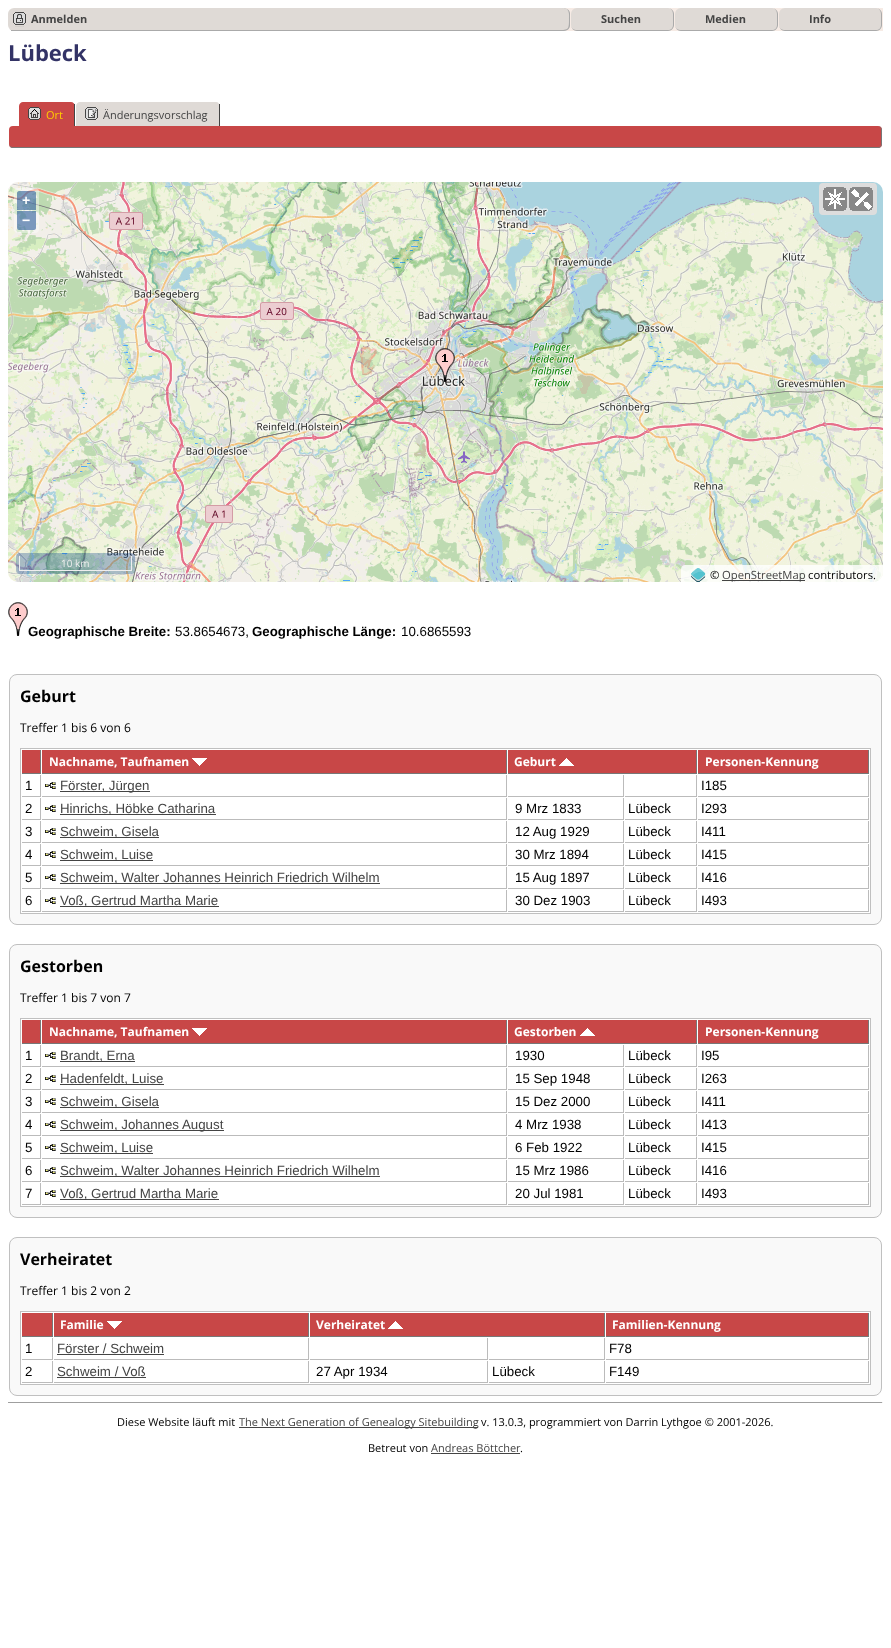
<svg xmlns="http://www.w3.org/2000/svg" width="891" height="1648">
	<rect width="100%" height="100%" fill="#FFFFFF" />
	<rect x="8" y="8" width="875" height="23" rx="6" fill="#DFDAD6" />
	<rect x="11" y="30" width="548" height="1" fill="#AAAAAA" />
	<image x="13" y="12" width="13" height="15" href="assets/img1.png" />
	<text x="31" y="23" font-family="Open Sans" font-size="11" font-weight="700" fill="#444444">Anmelden</text>
	<rect x="564" y="8" width="319" height="23" fill="#F6EBE5" />
	<path d="M559 8H564C567.5 8 570 10.5 570 14V25C570 28.5 567.5 31 564 31H559Z" fill="#DFDAD6" />
	<path d="M559 8C563 8 569 7.5 570 13V26C569 31.5 563 31 559 31ZM559 8H565C570 9.5 569 16 569 19.5C569 29.5 568.5 30 559 30Z" fill="#AAAAAA" fill-rule="evenodd" />
	<rect x="571" y="8" width="103" height="23" rx="6" fill="#DFDAD6" />
	<path d="M577 8H668C671 8 674 11 674 14V25C674 28 671 31 668 31H577C574 31 571 28 571 25V14C571 11 574 8 577 8ZM577 8H668C671 8 673 11 673 14V25C673 28 671 30 668 30H577C574 30 571 28 571 25V14C571 11 574 8 577 8Z" fill="#AAAAAA" fill-rule="evenodd" />
	<text x="601" y="23" font-family="Open Sans" font-size="11" font-weight="700" fill="#444444">Suchen</text>
	<rect x="675" y="8" width="103" height="23" rx="6" fill="#DFDAD6" />
	<path d="M681 8H772C775 8 778 11 778 14V25C778 28 775 31 772 31H681C678 31 675 28 675 25V14C675 11 678 8 681 8ZM681 8H772C775 8 777 11 777 14V25C777 28 775 30 772 30H681C678 30 675 28 675 25V14C675 11 678 8 681 8Z" fill="#AAAAAA" fill-rule="evenodd" />
	<text x="705" y="23" font-family="Open Sans" font-size="11" font-weight="700" fill="#444444">Medien</text>
	<rect x="779" y="8" width="103" height="23" rx="6" fill="#DFDAD6" />
	<path d="M785 8H876C879 8 882 11 882 14V25C882 28 879 31 876 31H785C782 31 779 28 779 25V14C779 11 782 8 785 8ZM785 8H876C879 8 881 11 881 14V25C881 28 879 30 876 30H785C782 30 779 28 779 25V14C779 11 782 8 785 8Z" fill="#AAAAAA" fill-rule="evenodd" />
	<text x="809" y="23" font-family="Open Sans" font-size="11" font-weight="700" fill="#444444">Info</text>
	<text x="8" y="61" font-family="Open Sans" font-size="22" font-weight="700" fill="#333366">Lübeck</text>
	<path d="M23 102H71C73 102 75 104 75 106V126H19V106C19 104 21 102 23 102Z" fill="#C84747" />
	<rect x="74" y="104" width="1" height="22" fill="#444444" />
	<image x="28" y="107" width="13" height="13" href="assets/img2.png" />
	<text x="46" y="119" font-family="Open Sans" font-size="11" fill="#FFCC00">Ort</text>
	<path d="M80 102H216C218 102 220 104 220 106V126H76V106C76 104 78 102 80 102Z" fill="#DFDAD6" />
	<rect x="219" y="104" width="1" height="22" fill="#444444" />
	<image x="85" y="107" width="13" height="13" href="assets/img3.png" />
	<text x="103" y="119" font-family="Open Sans" font-size="11" fill="#444444">Änderungsvorschlag</text>
	<rect x="9" y="126" width="873" height="22" rx="4" fill="#C84747" />
	<path d="M13 126H878C880 126 882 128 882 130V144C882 146 880 148 878 148H13C11 148 9 146 9 144V130C9 128 11 126 13 126ZM13 126H878C880 126 881 128 881 130V144C881 146 880 147 878 147H13C11 147 9 146 9 144V130C9 128 11 126 13 126Z" fill="#777777" fill-rule="evenodd" />
	<image x="8" y="182" width="875" height="400" href="assets/img6.png" />
	<rect x="819" y="183" width="58" height="32" rx="4" fill="#DDDDDD" />
	<image x="823" y="187" width="24" height="24" href="assets/img4.png" />
	<image x="849" y="187" width="24" height="24" href="assets/img5.png" />
	<rect x="14" y="188" width="25" height="45" rx="4" fill="#FFFFFF" fill-opacity="0.4" />
	<path d="M19 191H34C35 191 36 192 36 193V210H17V193C17 192 18 191 19 191Z" fill="#003C88" fill-opacity="0.5" />
	<text x="22" y="205" font-family="Liberation Sans" font-size="14" font-weight="700" fill="#FFFFFF">+</text>
	<path d="M17 211H36V228C36 229 35 230 34 230H19C18 230 17 229 17 228Z" fill="#003C88" fill-opacity="0.5" />
	<text x="22" y="225" font-family="Liberation Sans" font-size="14" font-weight="700" fill="#FFFFFF">−</text>
	<rect x="16" y="553" width="119" height="21" rx="4" fill="#003C88" fill-opacity="0.3" />
	<rect x="131" y="556" width="1" height="15" fill="#EEEEEE" />
	<rect x="19" y="570" width="113" height="1" fill="#EEEEEE" />
	<rect x="19" y="556" width="1" height="15" fill="#EEEEEE" />
	<text x="61" y="567" font-family="Open Sans" font-size="10" fill="#EEEEEE">10 km</text>
	<path d="M685 565H883V572C883 577.5 878.5 582 873 582H681V569C681 567 683 565 685 565Z" fill="#FFFFFF" fill-opacity="0.8" />
	<image x="691" y="568" width="15" height="14" href="assets/img7.png" />
	<text x="710" y="579" font-family="Open Sans" font-size="11.25" fill="#000000">©</text>
	<rect x="722" y="580" width="83" height="1" fill="#444444" />
	<text x="722" y="579" font-family="Open Sans" font-size="11.25" fill="#444444">OpenStreetMap</text>
	<text x="808" y="579" font-family="Open Sans" font-size="11.25" fill="#000000">contributors.</text>
	<image x="8" y="602" width="20" height="34" href="assets/img8.png" />
	<text x="28" y="636" font-family="Liberation Sans" font-size="13.3" font-weight="700" fill="#000000">Geographische Breite:</text>
	<text x="175" y="636" font-family="Liberation Sans" font-size="13.3" fill="#000000">53.8654673,</text>
	<text x="252" y="636" font-family="Liberation Sans" font-size="13.3" font-weight="700" fill="#000000">Geographische Länge:</text>
	<text x="401" y="636" font-family="Liberation Sans" font-size="13.3" fill="#000000">10.6865593</text>
	<rect x="9.5" y="674.5" width="872" height="250" rx="7.5" fill="#F9F9F9" stroke="#C0C0C0" />
	<text x="20" y="702" font-family="Open Sans" font-size="16" font-weight="700" fill="#000000">Geburt</text>
	<text x="20" y="732" font-family="Open Sans" font-size="12" fill="#000000">Treffer 1 bis 6 von 6</text>
	<rect x="20.5" y="748.5" width="850" height="165" fill="#FFFFFF" stroke="#C0C0C0" />
	<rect x="22" y="750" width="18" height="23" fill="#C84747" />
	<rect x="40" y="750" width="1" height="24" fill="#777777" />
	<rect x="22" y="773" width="19" height="1" fill="#777777" />
	<rect x="42" y="750" width="464" height="23" fill="#C84747" />
	<rect x="506" y="750" width="1" height="24" fill="#777777" />
	<rect x="42" y="773" width="465" height="1" fill="#777777" />
	<text x="49" y="766" font-family="Open Sans" font-size="12" font-weight="700" fill="#FFFFFF">Nachname, Taufnamen</text>
	<image x="192" y="758" width="15" height="8" href="assets/img9.png" />
	<rect x="508" y="750" width="188" height="23" fill="#C84747" />
	<rect x="696" y="750" width="1" height="24" fill="#777777" />
	<rect x="508" y="773" width="189" height="1" fill="#777777" />
	<text x="514" y="766" font-family="Open Sans" font-size="12" font-weight="700" fill="#FFFFFF">Geburt</text>
	<image x="559" y="758" width="15" height="8" href="assets/img10.png" />
	<rect x="698" y="750" width="170" height="23" fill="#C84747" />
	<rect x="868" y="750" width="1" height="24" fill="#777777" />
	<rect x="698" y="773" width="171" height="1" fill="#777777" />
	<text x="705" y="766" font-family="Open Sans" font-size="12" font-weight="700" fill="#FFFFFF">Personen-Kennung</text>
	<rect x="40" y="775" width="1" height="22" fill="#BBBBBB" />
	<rect x="22" y="796" width="19" height="1" fill="#BBBBBB" />
	<text x="25" y="790" font-family="Liberation Sans" font-size="13.3" fill="#000000">1</text>
	<rect x="506" y="775" width="1" height="22" fill="#BBBBBB" />
	<rect x="42" y="796" width="465" height="1" fill="#BBBBBB" />
	<image x="45" y="782" width="11" height="7" href="assets/img11.png" />
	<rect x="60" y="791" width="90" height="1" fill="#444444" />
	<text x="60" y="790" font-family="Liberation Sans" font-size="13.3" fill="#444444">Förster, Jürgen</text>
	<rect x="623" y="775" width="1" height="22" fill="#BBBBBB" />
	<rect x="508" y="796" width="116" height="1" fill="#BBBBBB" />
	<rect x="696" y="775" width="1" height="22" fill="#BBBBBB" />
	<rect x="625" y="796" width="72" height="1" fill="#BBBBBB" />
	<rect x="868" y="775" width="1" height="22" fill="#BBBBBB" />
	<rect x="698" y="796" width="171" height="1" fill="#BBBBBB" />
	<text x="701" y="790" font-family="Liberation Sans" font-size="13.3" fill="#000000">I185</text>
	<rect x="40" y="798" width="1" height="22" fill="#BBBBBB" />
	<rect x="22" y="819" width="19" height="1" fill="#BBBBBB" />
	<text x="25" y="813" font-family="Liberation Sans" font-size="13.3" fill="#000000">2</text>
	<rect x="506" y="798" width="1" height="22" fill="#BBBBBB" />
	<rect x="42" y="819" width="465" height="1" fill="#BBBBBB" />
	<image x="45" y="805" width="11" height="7" href="assets/img11.png" />
	<rect x="60" y="814" width="156" height="1" fill="#444444" />
	<text x="60" y="813" font-family="Liberation Sans" font-size="13.3" fill="#444444">Hinrichs, Höbke Catharina</text>
	<rect x="623" y="798" width="1" height="22" fill="#BBBBBB" />
	<rect x="508" y="819" width="116" height="1" fill="#BBBBBB" />
	<text x="515" y="813" font-family="Liberation Sans" font-size="13.3" fill="#000000">9 Mrz 1833</text>
	<rect x="696" y="798" width="1" height="22" fill="#BBBBBB" />
	<rect x="625" y="819" width="72" height="1" fill="#BBBBBB" />
	<text x="628" y="813" font-family="Liberation Sans" font-size="13.3" fill="#000000">Lübeck</text>
	<rect x="868" y="798" width="1" height="22" fill="#BBBBBB" />
	<rect x="698" y="819" width="171" height="1" fill="#BBBBBB" />
	<text x="701" y="813" font-family="Liberation Sans" font-size="13.3" fill="#000000">I293</text>
	<rect x="40" y="821" width="1" height="22" fill="#BBBBBB" />
	<rect x="22" y="842" width="19" height="1" fill="#BBBBBB" />
	<text x="25" y="836" font-family="Liberation Sans" font-size="13.3" fill="#000000">3</text>
	<rect x="506" y="821" width="1" height="22" fill="#BBBBBB" />
	<rect x="42" y="842" width="465" height="1" fill="#BBBBBB" />
	<image x="45" y="828" width="11" height="7" href="assets/img11.png" />
	<rect x="60" y="837" width="99" height="1" fill="#444444" />
	<text x="60" y="836" font-family="Liberation Sans" font-size="13.3" fill="#444444">Schweim, Gisela</text>
	<rect x="623" y="821" width="1" height="22" fill="#BBBBBB" />
	<rect x="508" y="842" width="116" height="1" fill="#BBBBBB" />
	<text x="515" y="836" font-family="Liberation Sans" font-size="13.3" fill="#000000">12 Aug 1929</text>
	<rect x="696" y="821" width="1" height="22" fill="#BBBBBB" />
	<rect x="625" y="842" width="72" height="1" fill="#BBBBBB" />
	<text x="628" y="836" font-family="Liberation Sans" font-size="13.3" fill="#000000">Lübeck</text>
	<rect x="868" y="821" width="1" height="22" fill="#BBBBBB" />
	<rect x="698" y="842" width="171" height="1" fill="#BBBBBB" />
	<text x="701" y="836" font-family="Liberation Sans" font-size="13.3" fill="#000000">I411</text>
	<rect x="40" y="844" width="1" height="22" fill="#BBBBBB" />
	<rect x="22" y="865" width="19" height="1" fill="#BBBBBB" />
	<text x="25" y="859" font-family="Liberation Sans" font-size="13.3" fill="#000000">4</text>
	<rect x="506" y="844" width="1" height="22" fill="#BBBBBB" />
	<rect x="42" y="865" width="465" height="1" fill="#BBBBBB" />
	<image x="45" y="851" width="11" height="7" href="assets/img11.png" />
	<rect x="60" y="860" width="93" height="1" fill="#444444" />
	<text x="60" y="859" font-family="Liberation Sans" font-size="13.3" fill="#444444">Schweim, Luise</text>
	<rect x="623" y="844" width="1" height="22" fill="#BBBBBB" />
	<rect x="508" y="865" width="116" height="1" fill="#BBBBBB" />
	<text x="515" y="859" font-family="Liberation Sans" font-size="13.3" fill="#000000">30 Mrz 1894</text>
	<rect x="696" y="844" width="1" height="22" fill="#BBBBBB" />
	<rect x="625" y="865" width="72" height="1" fill="#BBBBBB" />
	<text x="628" y="859" font-family="Liberation Sans" font-size="13.3" fill="#000000">Lübeck</text>
	<rect x="868" y="844" width="1" height="22" fill="#BBBBBB" />
	<rect x="698" y="865" width="171" height="1" fill="#BBBBBB" />
	<text x="701" y="859" font-family="Liberation Sans" font-size="13.3" fill="#000000">I415</text>
	<rect x="40" y="867" width="1" height="22" fill="#BBBBBB" />
	<rect x="22" y="888" width="19" height="1" fill="#BBBBBB" />
	<text x="25" y="882" font-family="Liberation Sans" font-size="13.3" fill="#000000">5</text>
	<rect x="506" y="867" width="1" height="22" fill="#BBBBBB" />
	<rect x="42" y="888" width="465" height="1" fill="#BBBBBB" />
	<image x="45" y="874" width="11" height="7" href="assets/img11.png" />
	<rect x="60" y="883" width="320" height="1" fill="#444444" />
	<text x="60" y="882" font-family="Liberation Sans" font-size="13.3" fill="#444444">Schweim, Walter Johannes Heinrich Friedrich Wilhelm</text>
	<rect x="623" y="867" width="1" height="22" fill="#BBBBBB" />
	<rect x="508" y="888" width="116" height="1" fill="#BBBBBB" />
	<text x="515" y="882" font-family="Liberation Sans" font-size="13.3" fill="#000000">15 Aug 1897</text>
	<rect x="696" y="867" width="1" height="22" fill="#BBBBBB" />
	<rect x="625" y="888" width="72" height="1" fill="#BBBBBB" />
	<text x="628" y="882" font-family="Liberation Sans" font-size="13.3" fill="#000000">Lübeck</text>
	<rect x="868" y="867" width="1" height="22" fill="#BBBBBB" />
	<rect x="698" y="888" width="171" height="1" fill="#BBBBBB" />
	<text x="701" y="882" font-family="Liberation Sans" font-size="13.3" fill="#000000">I416</text>
	<rect x="40" y="890" width="1" height="22" fill="#BBBBBB" />
	<rect x="22" y="911" width="19" height="1" fill="#BBBBBB" />
	<text x="25" y="905" font-family="Liberation Sans" font-size="13.3" fill="#000000">6</text>
	<rect x="506" y="890" width="1" height="22" fill="#BBBBBB" />
	<rect x="42" y="911" width="465" height="1" fill="#BBBBBB" />
	<image x="45" y="897" width="11" height="7" href="assets/img11.png" />
	<rect x="60" y="906" width="159" height="1" fill="#444444" />
	<text x="60" y="905" font-family="Liberation Sans" font-size="13.3" fill="#444444">Voß, Gertrud Martha Marie</text>
	<rect x="623" y="890" width="1" height="22" fill="#BBBBBB" />
	<rect x="508" y="911" width="116" height="1" fill="#BBBBBB" />
	<text x="515" y="905" font-family="Liberation Sans" font-size="13.3" fill="#000000">30 Dez 1903</text>
	<rect x="696" y="890" width="1" height="22" fill="#BBBBBB" />
	<rect x="625" y="911" width="72" height="1" fill="#BBBBBB" />
	<text x="628" y="905" font-family="Liberation Sans" font-size="13.3" fill="#000000">Lübeck</text>
	<rect x="868" y="890" width="1" height="22" fill="#BBBBBB" />
	<rect x="698" y="911" width="171" height="1" fill="#BBBBBB" />
	<text x="701" y="905" font-family="Liberation Sans" font-size="13.3" fill="#000000">I493</text>
	<rect x="9.5" y="944.5" width="872" height="273" rx="7.5" fill="#F9F9F9" stroke="#C0C0C0" />
	<text x="20" y="972" font-family="Open Sans" font-size="16" font-weight="700" fill="#000000">Gestorben</text>
	<text x="20" y="1002" font-family="Open Sans" font-size="12" fill="#000000">Treffer 1 bis 7 von 7</text>
	<rect x="20.5" y="1018.5" width="850" height="188" fill="#FFFFFF" stroke="#C0C0C0" />
	<rect x="22" y="1020" width="18" height="23" fill="#C84747" />
	<rect x="40" y="1020" width="1" height="24" fill="#777777" />
	<rect x="22" y="1043" width="19" height="1" fill="#777777" />
	<rect x="42" y="1020" width="464" height="23" fill="#C84747" />
	<rect x="506" y="1020" width="1" height="24" fill="#777777" />
	<rect x="42" y="1043" width="465" height="1" fill="#777777" />
	<text x="49" y="1036" font-family="Open Sans" font-size="12" font-weight="700" fill="#FFFFFF">Nachname, Taufnamen</text>
	<image x="192" y="1028" width="15" height="8" href="assets/img9.png" />
	<rect x="508" y="1020" width="188" height="23" fill="#C84747" />
	<rect x="696" y="1020" width="1" height="24" fill="#777777" />
	<rect x="508" y="1043" width="189" height="1" fill="#777777" />
	<text x="514" y="1036" font-family="Open Sans" font-size="12" font-weight="700" fill="#FFFFFF">Gestorben</text>
	<image x="580" y="1028" width="15" height="8" href="assets/img10.png" />
	<rect x="698" y="1020" width="170" height="23" fill="#C84747" />
	<rect x="868" y="1020" width="1" height="24" fill="#777777" />
	<rect x="698" y="1043" width="171" height="1" fill="#777777" />
	<text x="705" y="1036" font-family="Open Sans" font-size="12" font-weight="700" fill="#FFFFFF">Personen-Kennung</text>
	<rect x="40" y="1045" width="1" height="22" fill="#BBBBBB" />
	<rect x="22" y="1066" width="19" height="1" fill="#BBBBBB" />
	<text x="25" y="1060" font-family="Liberation Sans" font-size="13.3" fill="#000000">1</text>
	<rect x="506" y="1045" width="1" height="22" fill="#BBBBBB" />
	<rect x="42" y="1066" width="465" height="1" fill="#BBBBBB" />
	<image x="45" y="1052" width="11" height="7" href="assets/img11.png" />
	<rect x="60" y="1061" width="75" height="1" fill="#444444" />
	<text x="60" y="1060" font-family="Liberation Sans" font-size="13.3" fill="#444444">Brandt, Erna</text>
	<rect x="623" y="1045" width="1" height="22" fill="#BBBBBB" />
	<rect x="508" y="1066" width="116" height="1" fill="#BBBBBB" />
	<text x="515" y="1060" font-family="Liberation Sans" font-size="13.3" fill="#000000">1930</text>
	<rect x="696" y="1045" width="1" height="22" fill="#BBBBBB" />
	<rect x="625" y="1066" width="72" height="1" fill="#BBBBBB" />
	<text x="628" y="1060" font-family="Liberation Sans" font-size="13.3" fill="#000000">Lübeck</text>
	<rect x="868" y="1045" width="1" height="22" fill="#BBBBBB" />
	<rect x="698" y="1066" width="171" height="1" fill="#BBBBBB" />
	<text x="701" y="1060" font-family="Liberation Sans" font-size="13.3" fill="#000000">I95</text>
	<rect x="40" y="1068" width="1" height="22" fill="#BBBBBB" />
	<rect x="22" y="1089" width="19" height="1" fill="#BBBBBB" />
	<text x="25" y="1083" font-family="Liberation Sans" font-size="13.3" fill="#000000">2</text>
	<rect x="506" y="1068" width="1" height="22" fill="#BBBBBB" />
	<rect x="42" y="1089" width="465" height="1" fill="#BBBBBB" />
	<image x="45" y="1075" width="11" height="7" href="assets/img11.png" />
	<rect x="60" y="1084" width="104" height="1" fill="#444444" />
	<text x="60" y="1083" font-family="Liberation Sans" font-size="13.3" fill="#444444">Hadenfeldt, Luise</text>
	<rect x="623" y="1068" width="1" height="22" fill="#BBBBBB" />
	<rect x="508" y="1089" width="116" height="1" fill="#BBBBBB" />
	<text x="515" y="1083" font-family="Liberation Sans" font-size="13.3" fill="#000000">15 Sep 1948</text>
	<rect x="696" y="1068" width="1" height="22" fill="#BBBBBB" />
	<rect x="625" y="1089" width="72" height="1" fill="#BBBBBB" />
	<text x="628" y="1083" font-family="Liberation Sans" font-size="13.3" fill="#000000">Lübeck</text>
	<rect x="868" y="1068" width="1" height="22" fill="#BBBBBB" />
	<rect x="698" y="1089" width="171" height="1" fill="#BBBBBB" />
	<text x="701" y="1083" font-family="Liberation Sans" font-size="13.3" fill="#000000">I263</text>
	<rect x="40" y="1091" width="1" height="22" fill="#BBBBBB" />
	<rect x="22" y="1112" width="19" height="1" fill="#BBBBBB" />
	<text x="25" y="1106" font-family="Liberation Sans" font-size="13.3" fill="#000000">3</text>
	<rect x="506" y="1091" width="1" height="22" fill="#BBBBBB" />
	<rect x="42" y="1112" width="465" height="1" fill="#BBBBBB" />
	<image x="45" y="1098" width="11" height="7" href="assets/img11.png" />
	<rect x="60" y="1107" width="99" height="1" fill="#444444" />
	<text x="60" y="1106" font-family="Liberation Sans" font-size="13.3" fill="#444444">Schweim, Gisela</text>
	<rect x="623" y="1091" width="1" height="22" fill="#BBBBBB" />
	<rect x="508" y="1112" width="116" height="1" fill="#BBBBBB" />
	<text x="515" y="1106" font-family="Liberation Sans" font-size="13.3" fill="#000000">15 Dez 2000</text>
	<rect x="696" y="1091" width="1" height="22" fill="#BBBBBB" />
	<rect x="625" y="1112" width="72" height="1" fill="#BBBBBB" />
	<text x="628" y="1106" font-family="Liberation Sans" font-size="13.3" fill="#000000">Lübeck</text>
	<rect x="868" y="1091" width="1" height="22" fill="#BBBBBB" />
	<rect x="698" y="1112" width="171" height="1" fill="#BBBBBB" />
	<text x="701" y="1106" font-family="Liberation Sans" font-size="13.3" fill="#000000">I411</text>
	<rect x="40" y="1114" width="1" height="22" fill="#BBBBBB" />
	<rect x="22" y="1135" width="19" height="1" fill="#BBBBBB" />
	<text x="25" y="1129" font-family="Liberation Sans" font-size="13.3" fill="#000000">4</text>
	<rect x="506" y="1114" width="1" height="22" fill="#BBBBBB" />
	<rect x="42" y="1135" width="465" height="1" fill="#BBBBBB" />
	<image x="45" y="1121" width="11" height="7" href="assets/img11.png" />
	<rect x="60" y="1130" width="164" height="1" fill="#444444" />
	<text x="60" y="1129" font-family="Liberation Sans" font-size="13.3" fill="#444444">Schweim, Johannes August</text>
	<rect x="623" y="1114" width="1" height="22" fill="#BBBBBB" />
	<rect x="508" y="1135" width="116" height="1" fill="#BBBBBB" />
	<text x="515" y="1129" font-family="Liberation Sans" font-size="13.3" fill="#000000">4 Mrz 1938</text>
	<rect x="696" y="1114" width="1" height="22" fill="#BBBBBB" />
	<rect x="625" y="1135" width="72" height="1" fill="#BBBBBB" />
	<text x="628" y="1129" font-family="Liberation Sans" font-size="13.3" fill="#000000">Lübeck</text>
	<rect x="868" y="1114" width="1" height="22" fill="#BBBBBB" />
	<rect x="698" y="1135" width="171" height="1" fill="#BBBBBB" />
	<text x="701" y="1129" font-family="Liberation Sans" font-size="13.3" fill="#000000">I413</text>
	<rect x="40" y="1137" width="1" height="22" fill="#BBBBBB" />
	<rect x="22" y="1158" width="19" height="1" fill="#BBBBBB" />
	<text x="25" y="1152" font-family="Liberation Sans" font-size="13.3" fill="#000000">5</text>
	<rect x="506" y="1137" width="1" height="22" fill="#BBBBBB" />
	<rect x="42" y="1158" width="465" height="1" fill="#BBBBBB" />
	<image x="45" y="1144" width="11" height="7" href="assets/img11.png" />
	<rect x="60" y="1153" width="93" height="1" fill="#444444" />
	<text x="60" y="1152" font-family="Liberation Sans" font-size="13.3" fill="#444444">Schweim, Luise</text>
	<rect x="623" y="1137" width="1" height="22" fill="#BBBBBB" />
	<rect x="508" y="1158" width="116" height="1" fill="#BBBBBB" />
	<text x="515" y="1152" font-family="Liberation Sans" font-size="13.3" fill="#000000">6 Feb 1922</text>
	<rect x="696" y="1137" width="1" height="22" fill="#BBBBBB" />
	<rect x="625" y="1158" width="72" height="1" fill="#BBBBBB" />
	<text x="628" y="1152" font-family="Liberation Sans" font-size="13.3" fill="#000000">Lübeck</text>
	<rect x="868" y="1137" width="1" height="22" fill="#BBBBBB" />
	<rect x="698" y="1158" width="171" height="1" fill="#BBBBBB" />
	<text x="701" y="1152" font-family="Liberation Sans" font-size="13.3" fill="#000000">I415</text>
	<rect x="40" y="1160" width="1" height="22" fill="#BBBBBB" />
	<rect x="22" y="1181" width="19" height="1" fill="#BBBBBB" />
	<text x="25" y="1175" font-family="Liberation Sans" font-size="13.3" fill="#000000">6</text>
	<rect x="506" y="1160" width="1" height="22" fill="#BBBBBB" />
	<rect x="42" y="1181" width="465" height="1" fill="#BBBBBB" />
	<image x="45" y="1167" width="11" height="7" href="assets/img11.png" />
	<rect x="60" y="1176" width="320" height="1" fill="#444444" />
	<text x="60" y="1175" font-family="Liberation Sans" font-size="13.3" fill="#444444">Schweim, Walter Johannes Heinrich Friedrich Wilhelm</text>
	<rect x="623" y="1160" width="1" height="22" fill="#BBBBBB" />
	<rect x="508" y="1181" width="116" height="1" fill="#BBBBBB" />
	<text x="515" y="1175" font-family="Liberation Sans" font-size="13.3" fill="#000000">15 Mrz 1986</text>
	<rect x="696" y="1160" width="1" height="22" fill="#BBBBBB" />
	<rect x="625" y="1181" width="72" height="1" fill="#BBBBBB" />
	<text x="628" y="1175" font-family="Liberation Sans" font-size="13.3" fill="#000000">Lübeck</text>
	<rect x="868" y="1160" width="1" height="22" fill="#BBBBBB" />
	<rect x="698" y="1181" width="171" height="1" fill="#BBBBBB" />
	<text x="701" y="1175" font-family="Liberation Sans" font-size="13.3" fill="#000000">I416</text>
	<rect x="40" y="1183" width="1" height="22" fill="#BBBBBB" />
	<rect x="22" y="1204" width="19" height="1" fill="#BBBBBB" />
	<text x="25" y="1198" font-family="Liberation Sans" font-size="13.3" fill="#000000">7</text>
	<rect x="506" y="1183" width="1" height="22" fill="#BBBBBB" />
	<rect x="42" y="1204" width="465" height="1" fill="#BBBBBB" />
	<image x="45" y="1190" width="11" height="7" href="assets/img11.png" />
	<rect x="60" y="1199" width="159" height="1" fill="#444444" />
	<text x="60" y="1198" font-family="Liberation Sans" font-size="13.3" fill="#444444">Voß, Gertrud Martha Marie</text>
	<rect x="623" y="1183" width="1" height="22" fill="#BBBBBB" />
	<rect x="508" y="1204" width="116" height="1" fill="#BBBBBB" />
	<text x="515" y="1198" font-family="Liberation Sans" font-size="13.3" fill="#000000">20 Jul 1981</text>
	<rect x="696" y="1183" width="1" height="22" fill="#BBBBBB" />
	<rect x="625" y="1204" width="72" height="1" fill="#BBBBBB" />
	<text x="628" y="1198" font-family="Liberation Sans" font-size="13.3" fill="#000000">Lübeck</text>
	<rect x="868" y="1183" width="1" height="22" fill="#BBBBBB" />
	<rect x="698" y="1204" width="171" height="1" fill="#BBBBBB" />
	<text x="701" y="1198" font-family="Liberation Sans" font-size="13.3" fill="#000000">I493</text>
	<rect x="9.5" y="1237.5" width="872" height="158" rx="7.5" fill="#F9F9F9" stroke="#C0C0C0" />
	<text x="20" y="1265" font-family="Open Sans" font-size="16" font-weight="700" fill="#000000">Verheiratet</text>
	<text x="20" y="1295" font-family="Open Sans" font-size="12" fill="#000000">Treffer 1 bis 2 von 2</text>
	<rect x="20.5" y="1311.5" width="850" height="73" fill="#FFFFFF" stroke="#C0C0C0" />
	<rect x="22" y="1313" width="30" height="23" fill="#C84747" />
	<rect x="52" y="1313" width="1" height="24" fill="#777777" />
	<rect x="22" y="1336" width="31" height="1" fill="#777777" />
	<rect x="54" y="1313" width="254" height="23" fill="#C84747" />
	<rect x="308" y="1313" width="1" height="24" fill="#777777" />
	<rect x="54" y="1336" width="255" height="1" fill="#777777" />
	<text x="60" y="1329" font-family="Open Sans" font-size="12" font-weight="700" fill="#FFFFFF">Familie</text>
	<image x="107" y="1321" width="15" height="8" href="assets/img9.png" />
	<rect x="310" y="1313" width="294" height="23" fill="#C84747" />
	<rect x="604" y="1313" width="1" height="24" fill="#777777" />
	<rect x="310" y="1336" width="295" height="1" fill="#777777" />
	<text x="316" y="1329" font-family="Open Sans" font-size="12" font-weight="700" fill="#FFFFFF">Verheiratet</text>
	<image x="388" y="1321" width="15" height="8" href="assets/img10.png" />
	<rect x="606" y="1313" width="262" height="23" fill="#C84747" />
	<rect x="868" y="1313" width="1" height="24" fill="#777777" />
	<rect x="606" y="1336" width="263" height="1" fill="#777777" />
	<text x="612" y="1329" font-family="Open Sans" font-size="12" font-weight="700" fill="#FFFFFF">Familien-Kennung</text>
	<rect x="52" y="1338" width="1" height="22" fill="#BBBBBB" />
	<rect x="22" y="1359" width="31" height="1" fill="#BBBBBB" />
	<text x="25" y="1353" font-family="Liberation Sans" font-size="13.3" fill="#000000">1</text>
	<rect x="308" y="1338" width="1" height="22" fill="#BBBBBB" />
	<rect x="54" y="1359" width="255" height="1" fill="#BBBBBB" />
	<text x="57" y="1353" font-family="Liberation Sans" font-size="13.3" fill="#444444">Förster / Schweim</text>
	<rect x="57" y="1354" width="107" height="1" fill="#444444" />
	<rect x="487" y="1338" width="1" height="22" fill="#BBBBBB" />
	<rect x="310" y="1359" width="178" height="1" fill="#BBBBBB" />
	<rect x="604" y="1338" width="1" height="22" fill="#BBBBBB" />
	<rect x="489" y="1359" width="116" height="1" fill="#BBBBBB" />
	<rect x="868" y="1338" width="1" height="22" fill="#BBBBBB" />
	<rect x="606" y="1359" width="263" height="1" fill="#BBBBBB" />
	<text x="609" y="1353" font-family="Liberation Sans" font-size="13.3" fill="#000000">F78</text>
	<rect x="52" y="1361" width="1" height="22" fill="#BBBBBB" />
	<rect x="22" y="1382" width="31" height="1" fill="#BBBBBB" />
	<text x="25" y="1376" font-family="Liberation Sans" font-size="13.3" fill="#000000">2</text>
	<rect x="308" y="1361" width="1" height="22" fill="#BBBBBB" />
	<rect x="54" y="1382" width="255" height="1" fill="#BBBBBB" />
	<text x="57" y="1376" font-family="Liberation Sans" font-size="13.3" fill="#444444">Schweim / Voß</text>
	<rect x="57" y="1377" width="89" height="1" fill="#444444" />
	<rect x="487" y="1361" width="1" height="22" fill="#BBBBBB" />
	<rect x="310" y="1382" width="178" height="1" fill="#BBBBBB" />
	<text x="316" y="1376" font-family="Liberation Sans" font-size="13.3" fill="#000000">27 Apr 1934</text>
	<rect x="604" y="1361" width="1" height="22" fill="#BBBBBB" />
	<rect x="489" y="1382" width="116" height="1" fill="#BBBBBB" />
	<text x="492" y="1376" font-family="Liberation Sans" font-size="13.3" fill="#000000">Lübeck</text>
	<rect x="868" y="1361" width="1" height="22" fill="#BBBBBB" />
	<rect x="606" y="1382" width="263" height="1" fill="#BBBBBB" />
	<text x="609" y="1376" font-family="Liberation Sans" font-size="13.3" fill="#000000">F149</text>
	<rect x="8" y="1402" width="875" height="1" fill="#9F9F9F" />
	<rect x="882" y="1402" width="1" height="1" fill="#EEEEEE" />
	<text x="117" y="1426" font-family="Open Sans" font-size="11" fill="#000000">Diese Website läuft mit</text>
	<rect x="239" y="1427" width="239" height="1" fill="#444444" />
	<text x="239" y="1426" font-family="Open Sans" font-size="11" fill="#444444">The Next Generation of Genealogy Sitebuilding</text>
	<g font-family="Open Sans" font-size="11" fill="#000000">
		<text x="481" y="1426">v. 13.0.3, programmiert von Darrin Lythgoe © 2001-2026.</text>
		<text x="368" y="1452">Betreut von</text>
	</g>
	<text x="431" y="1452" font-family="Open Sans" font-size="11" fill="#444444">Andreas Böttcher</text>
	<rect x="431" y="1453" width="89" height="1" fill="#444444" />
	<text x="520" y="1452" font-family="Open Sans" font-size="11" fill="#000000">.</text>
</svg>
